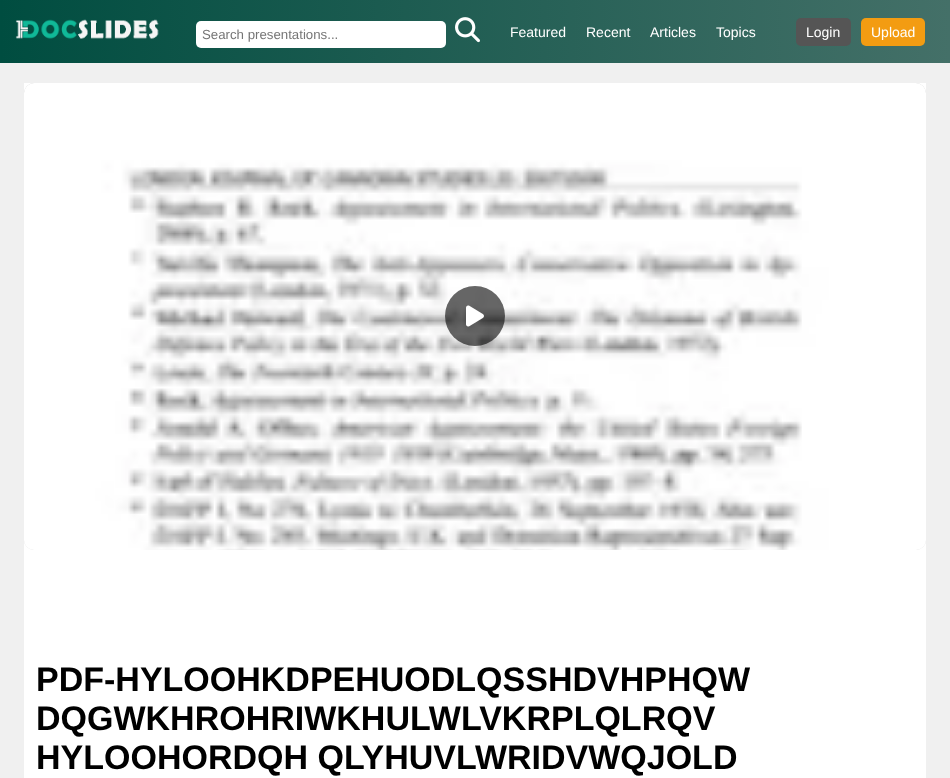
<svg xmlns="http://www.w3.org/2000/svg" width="950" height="778">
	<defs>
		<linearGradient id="g1" gradientUnits="userSpaceOnUse" x1="0" y1="32" x2="950" y2="31"><stop offset="0" stop-color="#004D40" /><stop offset="1" stop-color="#447068" /></linearGradient>
	</defs>
	<rect width="100%" height="100%" fill="#F0F0F0" />
	<rect x="0" y="0" width="950" height="63" fill="url(#g1)" />
	<image x="15" y="19" width="144" height="20" href="assets/img1.png" />
	<rect x="196" y="21" width="250" height="27" rx="5" fill="#FFFFFF" />
	<text x="202" y="39" font-family="Liberation Sans" font-size="13.25" fill="#757575">Search presentations...</text>
	<image x="455" y="17" width="25" height="26" href="assets/img2.png" />
	<g font-family="Liberation Sans" font-size="14" fill="#FFFFFF">
		<text x="510" y="37">Featured</text>
		<text x="586" y="37">Recent</text>
		<text x="650" y="37">Articles</text>
		<text x="716" y="37">Topics</text>
	</g>
	<rect x="796" y="18" width="55" height="28" rx="5" fill="#555555" />
	<text x="806" y="37" font-family="Liberation Sans" font-size="14" fill="#FFFFFF">Login</text>
	<rect x="861" y="18" width="64" height="28" rx="5" fill="#F39C12" />
	<text x="871" y="37" font-family="Liberation Sans" font-size="14" fill="#FFFFFF">Upload</text>
	<rect x="24" y="83" width="902" height="695" fill="#FFFFFF" />
	<rect x="24" y="83" width="902" height="467" rx="10" fill="#DDDDDD" />
	<image x="24" y="83" width="902" height="467" href="assets/img3.png" />
	<circle cx="475" cy="316" r="30" fill="#000000" fill-opacity="0.6" />
	<image x="466" y="305" width="18" height="22" href="assets/img4.png" />
	<g font-family="Liberation Sans" font-size="34" font-weight="700" fill="#000000">
		<text x="36" y="691">PDF-HYLOOHKDPEHUODLQSSHDVHPHQW</text>
		<text x="36" y="730">DQGWKHROHRIWKHULWLVKRPLQLRQV</text>
		<text x="36" y="769">HYLOOHORDQH QLYHUVLWRIDVWQJOLD</text>
	</g>
</svg>
